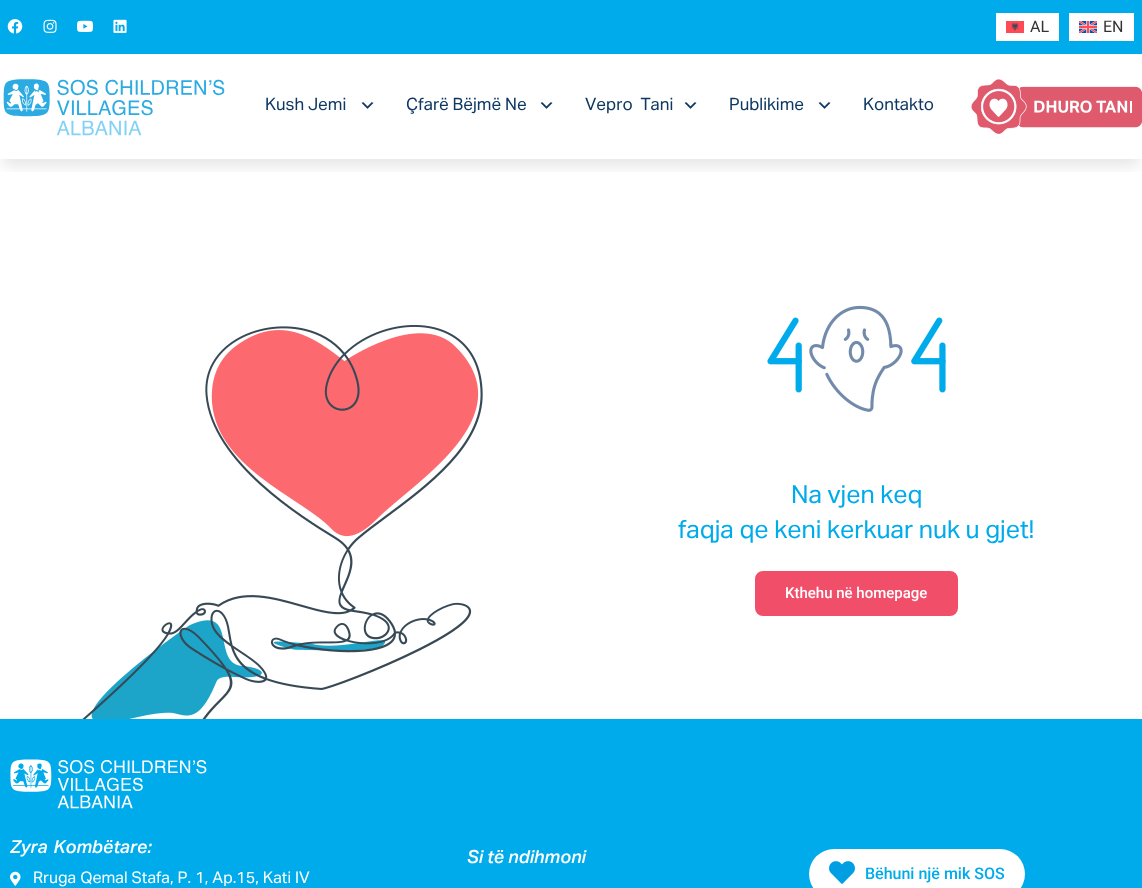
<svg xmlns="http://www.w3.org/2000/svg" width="1142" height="888">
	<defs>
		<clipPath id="clip1"><rect x="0" y="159" width="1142" height="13" /></clipPath>
	</defs>
	<rect width="100%" height="100%" fill="#FFFFFF" />
	<rect x="0" y="0" width="1142" height="54" fill="#00ABEC" />
	<image x="7" y="19" width="16" height="15" href="assets/img1.png" />
	<image x="43" y="19" width="14" height="14" href="assets/img2.png" />
	<image x="77" y="20" width="16" height="12" href="assets/img3.png" />
	<image x="113" y="19" width="14" height="14" href="assets/img4.png" />
	<rect x="996" y="13" width="63" height="28" fill="#FFFFFF" />
	<image x="1006" y="21" width="18" height="12" href="assets/img5.png" />
	<text x="1030" y="32" font-family="Roboto" font-size="16" fill="#333333">AL</text>
	<rect x="1069" y="13" width="65" height="28" fill="#FFFFFF" />
	<image x="1079" y="21" width="18" height="12" href="assets/img6.png" />
	<text x="1103" y="32" font-family="Roboto" font-size="16" fill="#333333">EN</text>
	<g clip-path="url(#clip1)">
		<rect x="3" y="67" width="1136" height="99" fill="#000000" fill-opacity="0.1" filter="blur(7.5px)" />
	</g>
	<image x="3" y="79" width="222" height="57" href="assets/img7.png" />
	<text x="265" y="110" font-family="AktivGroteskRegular" font-size="17" fill="#0E3862">Kush Jemi</text>
	<image x="361" y="102" width="13" height="7" href="assets/img8.png" />
	<text x="406" y="110" font-family="AktivGroteskRegular" font-size="17" fill="#0E3862">Çfarë Bëjmë Ne</text>
	<image x="540" y="102" width="13" height="7" href="assets/img8.png" />
	<text x="585" y="110" word-spacing="4" font-family="AktivGroteskRegular" font-size="17" fill="#0E3862">Vepro Tani</text>
	<image x="684" y="102" width="13" height="7" href="assets/img8.png" />
	<text x="729" y="110" font-family="AktivGroteskRegular" font-size="17" fill="#0E3862">Publikime</text>
	<image x="818" y="102" width="13" height="7" href="assets/img8.png" />
	<text x="863" y="110" font-family="AktivGroteskRegular" font-size="17" fill="#0E3862">Kontakto</text>
	<image x="971" y="79" width="171" height="55" href="assets/img9.png" />
	<image x="82" y="325" width="401" height="394" href="assets/img10.png" />
	<image x="767" y="305" width="179" height="107" href="assets/img11.png" />
	<g font-family="AktivGroteskRegular" font-size="25" fill="#00ABEC">
		<text x="791" y="503">Na vjen keq</text>
		<text x="678" y="538">faqja qe keni kerkuar nuk u gjet!</text>
	</g>
	<rect x="754" y="570" width="205" height="47" rx="9" fill="#F14E69" stroke="#FFFFFF" stroke-width="2" />
	<text x="785" y="598" font-family="Roboto" font-size="15" font-weight="500" fill="#FFFFFF">Kthehu në homepage</text>
	<rect x="0" y="719" width="1142" height="169" fill="#00ABEC" />
	<image x="10" y="759" width="197" height="50" href="assets/img12.png" />
	<text x="10" y="853" word-spacing="2" font-family="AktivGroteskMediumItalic" font-size="18" font-weight="500" font-style="italic" fill="#FFFFFF">Zyra Kombëtare:</text>
	<image x="10" y="871" width="11" height="15" href="assets/img13.png" />
	<text x="33" y="883" word-spacing="0.5" font-family="AktivGroteskRegular" font-size="16" fill="#FFFFFF">Rruga Qemal Stafa, P. 1, Ap.15, Kati IV</text>
	<text x="467" y="863" font-family="AktivGroteskMediumItalic" font-size="18" font-weight="500" font-style="italic" fill="#FFFFFF">Si të ndihmoni</text>
	<rect x="809" y="849" width="216" height="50" rx="25" fill="#FFFFFF" />
	<image x="829" y="861" width="26" height="23" href="assets/img14.png" />
	<text x="865" y="879" font-family="Roboto" font-size="16" font-weight="500" fill="#00ABEC">Bëhuni një mik SOS</text>
</svg>
